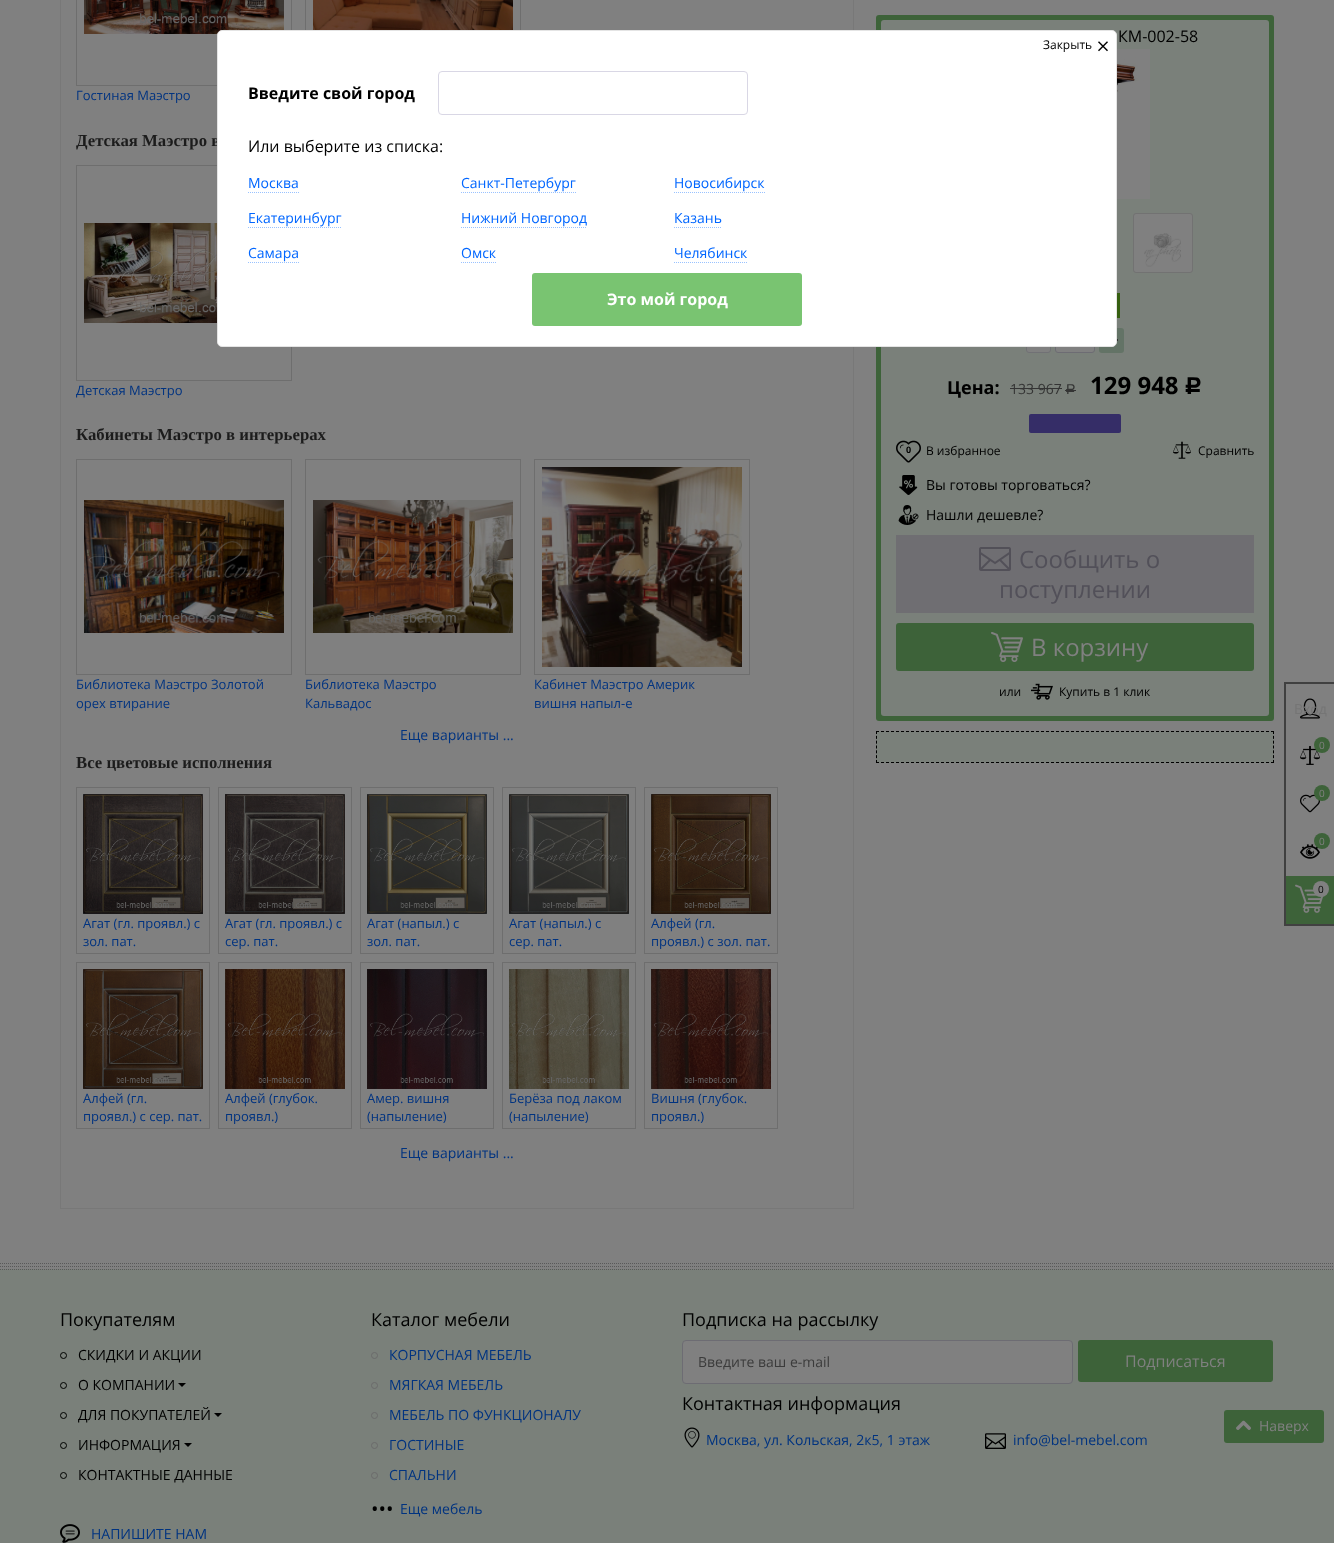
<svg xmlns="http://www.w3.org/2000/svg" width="1334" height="1543">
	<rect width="100%" height="100%" fill="#808080" />
	<rect x="60.5" y="-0.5" width="793" height="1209" fill="none" stroke="#787878" />
	<rect x="305.5" y="-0.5" width="215" height="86" fill="none" stroke="#6E6E6E" />
	<image x="313" y="0" width="200" height="30" href="assets/img1.png" />
	<rect x="76.5" y="-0.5" width="215" height="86" fill="none" stroke="#6E6E6E" />
	<image x="84" y="0" width="200" height="34" href="assets/img2.png" />
	<text x="76" y="100" font-family="Open Sans" font-size="13" fill="#003380">Гостиная Маэстро</text>
	<text x="76" y="146" font-family="Liberation Serif" font-size="16.75" font-weight="700" fill="#1C1C1C">Детская Маэстро в</text>
	<rect x="76.5" y="165.5" width="215" height="215" fill="none" stroke="#6E6E6E" />
	<image x="84" y="223" width="133" height="100" href="assets/img3.png" />
	<text x="76" y="395" font-family="Open Sans" font-size="13" fill="#003380">Детская Маэстро</text>
	<text x="76" y="440" font-family="Liberation Serif" font-size="16.75" font-weight="700" fill="#1C1C1C">Кабинеты Маэстро в интерьерах</text>
	<rect x="76.5" y="459.5" width="215" height="215" fill="none" stroke="#6E6E6E" />
	<image x="84" y="500" width="200" height="133" href="assets/img4.png" />
	<g font-family="Open Sans" font-size="13" fill="#003380">
		<text x="76" y="689">Библиотека Маэстро Золотой</text>
		<text x="76" y="708">орех втирание</text>
	</g>
	<rect x="305.5" y="459.5" width="215" height="215" fill="none" stroke="#6E6E6E" />
	<image x="313" y="500" width="200" height="133" href="assets/img5.png" />
	<g font-family="Open Sans" font-size="13" fill="#003380">
		<text x="305" y="689">Библиотека Маэстро</text>
		<text x="305" y="708">Кальвадос</text>
	</g>
	<rect x="534.5" y="459.5" width="215" height="215" fill="none" stroke="#6E6E6E" />
	<image x="542" y="467" width="200" height="200" href="assets/img6.png" />
	<g font-family="Open Sans" font-size="13" fill="#003380">
		<text x="534" y="689">Кабинет Маэстро Америк</text>
		<text x="534" y="708">вишня напыл-е</text>
	</g>
	<text x="400" y="740" font-family="Open Sans" font-size="14" fill="#003380">Еще варианты ...</text>
	<text x="76" y="768" font-family="Liberation Serif" font-size="16.75" font-weight="700" fill="#1C1C1C">Все цветовые исполнения</text>
	<rect x="76.5" y="787.5" width="133" height="166" fill="none" stroke="#6E6E6E" />
	<image x="83" y="794" width="120" height="120" href="assets/img7.png" />
	<g font-family="Open Sans" font-size="13" fill="#003380">
		<text x="83" y="928">Агат (гл. проявл.) с</text>
		<text x="83" y="946">зол. пат.</text>
	</g>
	<rect x="218.5" y="787.5" width="133" height="166" fill="none" stroke="#6E6E6E" />
	<image x="225" y="794" width="120" height="120" href="assets/img8.png" />
	<g font-family="Open Sans" font-size="13" fill="#003380">
		<text x="225" y="928">Агат (гл. проявл.) с</text>
		<text x="225" y="946">сер. пат.</text>
	</g>
	<rect x="360.5" y="787.5" width="133" height="166" fill="none" stroke="#6E6E6E" />
	<image x="367" y="794" width="120" height="120" href="assets/img9.png" />
	<g font-family="Open Sans" font-size="13" fill="#003380">
		<text x="367" y="928">Агат (напыл.) с</text>
		<text x="367" y="946">зол. пат.</text>
	</g>
	<rect x="502.5" y="787.5" width="133" height="166" fill="none" stroke="#6E6E6E" />
	<image x="509" y="794" width="120" height="120" href="assets/img10.png" />
	<g font-family="Open Sans" font-size="13" fill="#003380">
		<text x="509" y="928">Агат (напыл.) с</text>
		<text x="509" y="946">сер. пат.</text>
	</g>
	<rect x="644.5" y="787.5" width="133" height="166" fill="none" stroke="#6E6E6E" />
	<image x="651" y="794" width="120" height="120" href="assets/img11.png" />
	<g font-family="Open Sans" font-size="13" fill="#003380">
		<text x="651" y="928">Алфей (гл.</text>
		<text x="651" y="946">проявл.) с зол. пат.</text>
	</g>
	<rect x="76.5" y="962.5" width="133" height="166" fill="none" stroke="#6E6E6E" />
	<image x="83" y="969" width="120" height="120" href="assets/img12.png" />
	<g font-family="Open Sans" font-size="13" fill="#003380">
		<text x="83" y="1103">Алфей (гл.</text>
		<text x="83" y="1121">проявл.) с сер. пат.</text>
	</g>
	<rect x="218.5" y="962.5" width="133" height="166" fill="none" stroke="#6E6E6E" />
	<image x="225" y="969" width="120" height="120" href="assets/img13.png" />
	<g font-family="Open Sans" font-size="13" fill="#003380">
		<text x="225" y="1103">Алфей (глубок.</text>
		<text x="225" y="1121">проявл.)</text>
	</g>
	<rect x="360.5" y="962.5" width="133" height="166" fill="none" stroke="#6E6E6E" />
	<image x="367" y="969" width="120" height="120" href="assets/img14.png" />
	<g font-family="Open Sans" font-size="13" fill="#003380">
		<text x="367" y="1103">Амер. вишня</text>
		<text x="367" y="1121">(напыление)</text>
	</g>
	<rect x="502.5" y="962.5" width="133" height="166" fill="none" stroke="#6E6E6E" />
	<image x="509" y="969" width="120" height="120" href="assets/img15.png" />
	<g font-family="Open Sans" font-size="13" fill="#003380">
		<text x="509" y="1103">Берёза под лаком</text>
		<text x="509" y="1121">(напыление)</text>
	</g>
	<rect x="644.5" y="962.5" width="133" height="166" fill="none" stroke="#6E6E6E" />
	<image x="651" y="969" width="120" height="120" href="assets/img16.png" />
	<g font-family="Open Sans" font-size="13" fill="#003380">
		<text x="651" y="1103">Вишня (глубок.</text>
		<text x="651" y="1121">проявл.)</text>
	</g>
	<text x="400" y="1158" font-family="Open Sans" font-size="14" fill="#003380">Еще варианты ...</text>
	<rect x="876" y="15" width="398" height="706" rx="3" fill="#3D6239" />
	<rect x="881" y="20" width="388" height="696" rx="3" fill="#7A807A" />
	<text x="1118" y="42" font-family="Open Sans" font-size="16" fill="#000000">КМ-002-58</text>
	<image x="1117" y="49" width="33" height="150" href="assets/img17.png" />
	<rect x="1133.5" y="213.5" width="59" height="59" rx="2.5" fill="#808080" stroke="#727272" />
	<image x="1144" y="233" width="37" height="34" href="assets/img18.png" />
	<rect x="1117" y="293" width="3" height="25" fill="#365F11" />
	<rect x="1026.5" y="328.5" width="24" height="24" rx="2.5" fill="#808080" stroke="#717175" />
	<rect x="1055.5" y="328.5" width="39" height="24" rx="2.5" fill="#808080" stroke="#6D6C73" />
	<rect x="1099" y="328" width="25" height="25" rx="3" fill="#637366" />
	<rect x="1117" y="339" width="1" height="2" fill="#333333" />
	<text x="947" y="394" font-family="Open Sans" font-size="18" font-weight="700" fill="#000000">Цена:</text>
	<text x="1010" y="394" font-family="Open Sans" font-size="14" fill="#343434">133 967</text>
	<rect x="1010" y="388" width="52" height="1" fill="#343434" />
	<text x="1065" y="394" font-family="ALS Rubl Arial" font-size="14" fill="#343434">Р</text>
	<rect x="1065" y="390" width="11" height="1" fill="#343434" />
	<text x="1090" y="394" font-family="Open Sans" font-size="24" font-weight="700" fill="#000000">129 948</text>
	<text x="1184" y="394" font-family="ALS Rubl Arial" font-size="24" font-weight="700" fill="#000000">Р</text>
	<rect x="1029" y="414" width="92" height="19" rx="2" fill="#352D67" />
	<text x="906" y="453" font-family="Open Sans" font-size="9" font-weight="700" fill="#000000">0</text>
	<image x="896" y="440" width="25" height="23" href="assets/img19.png" />
	<text x="926" y="455" font-family="Open Sans" font-size="12" fill="#000000">В избранное</text>
	<image x="1173" y="441" width="18" height="18" href="assets/img20.png" />
	<text x="1198" y="455" font-family="Open Sans" font-size="12" fill="#000000">Сравнить</text>
	<image x="899" y="475" width="19" height="20" href="assets/img21.png" />
	<text x="926" y="490" font-family="Open Sans" font-size="14" fill="#000000">Вы готовы торговаться?</text>
	<image x="898" y="505" width="21" height="20" href="assets/img22.png" />
	<text x="926" y="520" font-family="Open Sans" font-size="14" fill="#000000">Нашли дешевле?</text>
	<rect x="896" y="535" width="358" height="78" fill="#6F6E72" />
	<image x="979" y="547" width="32" height="24" href="assets/img23.png" />
	<g font-family="Open Sans" font-size="24" fill="#525059">
		<text x="1019" y="568">Сообщить о</text>
		<text x="999" y="598">поступлении</text>
	</g>
	<rect x="896" y="623" width="358" height="48" rx="3" fill="#3D6239" />
	<image x="991" y="632" width="32" height="30" href="assets/img24.png" />
	<text x="1031" y="656" font-family="Open Sans" font-size="24" fill="#808080">В корзину</text>
	<text x="999" y="696" font-family="Open Sans" font-size="12" fill="#000000">или</text>
	<image x="1031" y="683" width="22" height="17" href="assets/img25.png" />
	<text x="1059" y="696" font-family="Open Sans" font-size="12" fill="#000000">Купить в 1 клик</text>
	<rect x="876" y="731" width="398" height="32" fill="#7A807A" />
	<path d="M876 731.5H1274" fill="none" stroke="#000000" stroke-dasharray="3 2" />
	<path d="M1273.5 731V763" fill="none" stroke="#000000" stroke-dasharray="3 1.83" />
	<path d="M876 762.5H1274" fill="none" stroke="#000000" stroke-dasharray="3 2" />
	<path d="M876.5 731V763" fill="none" stroke="#000000" stroke-dasharray="3 1.83" />
	<rect x="1284" y="682" width="50" height="2" fill="#404040" />
	<rect x="1284" y="924" width="50" height="2" fill="#404040" />
	<rect x="1284" y="682" width="2" height="244" fill="#404040" />
	<image x="1300" y="698" width="20" height="21" href="assets/img26.png" />
	<text x="1294" y="714" font-family="Open Sans" font-size="14" fill="#757575">Вход</text>
	<image x="1300" y="746" width="20" height="19" href="assets/img27.png" />
	<circle cx="1322" cy="745" r="8" fill="#3D6239" />
	<text x="1319" y="749" font-family="Open Sans" font-size="10" fill="#808080">0</text>
	<image x="1300" y="794" width="20" height="19" href="assets/img28.png" />
	<circle cx="1322" cy="793" r="8" fill="#3D6239" />
	<text x="1319" y="797" font-family="Open Sans" font-size="10" fill="#808080">0</text>
	<image x="1300" y="844" width="20" height="15" href="assets/img29.png" />
	<circle cx="1322" cy="841" r="8" fill="#3D6239" />
	<text x="1319" y="845" font-family="Open Sans" font-size="10" fill="#808080">0</text>
	<rect x="1286" y="876" width="48" height="48" fill="#3D6239" />
	<image x="1295" y="884" width="29" height="29" href="assets/img30.png" />
	<circle cx="1321" cy="889" r="8" fill="#808080" />
	<text x="1318" y="893" font-family="Open Sans" font-size="10" fill="#000000">0</text>
	<rect x="0" y="1269" width="1334" height="274" fill="#7A807A" />
	<path d="M0 1269.5H1334" fill="none" stroke="#595959" stroke-dasharray="1 1" />
	<path d="M0 1263.5H1334" fill="none" stroke="#595959" stroke-dasharray="1 1" />
	<path d="M0 1266.5H1334" fill="none" stroke="#595959" stroke-dasharray="1 1" />
	<text x="60" y="1326" font-family="Open Sans" font-size="18" fill="#000000">Покупателям</text>
	<circle cx="63.5" cy="1355.5" r="3" fill="none" stroke="#000000" />
	<text x="78" y="1360" font-family="Open Sans" font-size="14" fill="#000000">СКИДКИ И АКЦИИ</text>
	<circle cx="63.5" cy="1385.5" r="3" fill="none" stroke="#000000" />
	<text x="78" y="1390" font-family="Open Sans" font-size="14" fill="#000000">О КОМПАНИИ</text>
	<path d="M178 1383H186L182 1387Z" fill="#000000" />
	<circle cx="63.5" cy="1415.5" r="3" fill="none" stroke="#000000" />
	<text x="78" y="1420" font-family="Open Sans" font-size="14" fill="#000000">ДЛЯ ПОКУПАТЕЛЕЙ</text>
	<path d="M214 1413H222L218 1417Z" fill="#000000" />
	<circle cx="63.5" cy="1445.5" r="3" fill="none" stroke="#000000" />
	<text x="78" y="1450" font-family="Open Sans" font-size="14" fill="#000000">ИНФОРМАЦИЯ</text>
	<path d="M184 1443H192L188 1447Z" fill="#000000" />
	<circle cx="63.5" cy="1475.5" r="3" fill="none" stroke="#000000" />
	<text x="78" y="1480" font-family="Open Sans" font-size="14" fill="#000000">КОНТАКТНЫЕ ДАННЫЕ</text>
	<image x="60" y="1524" width="20" height="19" href="assets/img31.png" />
	<text x="91" y="1539" font-family="Open Sans" font-size="14" fill="#003380">НАПИШИТЕ НАМ</text>
	<text x="371" y="1326" font-family="Open Sans" font-size="18" fill="#000000">Каталог мебели</text>
	<circle cx="374.5" cy="1355.5" r="3" fill="none" stroke="#6B6B6B" />
	<text x="389" y="1360" font-family="Open Sans" font-size="14" fill="#003380">КОРПУСНАЯ МЕБЕЛЬ</text>
	<circle cx="374.5" cy="1385.5" r="3" fill="none" stroke="#6B6B6B" />
	<text x="389" y="1390" font-family="Open Sans" font-size="14" fill="#003380">МЯГКАЯ МЕБЕЛЬ</text>
	<circle cx="374.5" cy="1415.5" r="3" fill="none" stroke="#6B6B6B" />
	<text x="389" y="1420" font-family="Open Sans" font-size="14" fill="#003380">МЕБЕЛЬ ПО ФУНКЦИОНАЛУ</text>
	<circle cx="374.5" cy="1445.5" r="3" fill="none" stroke="#6B6B6B" />
	<text x="389" y="1450" font-family="Open Sans" font-size="14" fill="#003380">ГОСТИНЫЕ</text>
	<circle cx="374.5" cy="1475.5" r="3" fill="none" stroke="#6B6B6B" />
	<text x="389" y="1480" font-family="Open Sans" font-size="14" fill="#003380">СПАЛЬНИ</text>
	<text x="371" y="1516" font-family="Open Sans" font-size="20" fill="#000000">•••</text>
	<text x="400" y="1514" font-family="Open Sans" font-size="14" fill="#003380">Еще мебель</text>
	<text x="682" y="1326" font-family="Open Sans" font-size="18" fill="#000000">Подписка на рассылку</text>
	<rect x="682.5" y="1340.5" width="390" height="43" rx="3.5" fill="#808080" stroke="#6D6C73" />
	<text x="698" y="1367" font-family="Open Sans" font-size="14" fill="#3B3B3B">Введите ваш e-mail</text>
	<rect x="1078" y="1340" width="195" height="42" rx="3" fill="#3D6239" />
	<text x="1125" y="1367" font-family="Open Sans" font-size="16" fill="#808080">Подписаться</text>
	<text x="682" y="1410" font-family="Open Sans" font-size="18" fill="#000000">Контактная информация</text>
	<image x="684" y="1427" width="16" height="21" href="assets/img32.png" />
	<text x="706" y="1445" font-family="Open Sans" font-size="14" fill="#003380">Москва, ул. Кольская, 2к5, 1 этаж</text>
	<image x="985" y="1433" width="21" height="16" href="assets/img33.png" />
	<text x="1013" y="1445" font-family="Open Sans" font-size="14" fill="#003380">info@bel-mebel.com</text>
	<rect x="217.5" y="30.5" width="899" height="316" rx="4.5" fill="#FFFFFF" stroke="#E4E4E4" />
	<text x="1043" y="49" font-family="Open Sans" font-size="12" fill="#000000">Закрыть</text>
	<image x="1098" y="41" width="10" height="11" href="assets/img34.png" />
	<text x="248" y="99" font-family="Open Sans" font-size="16" font-weight="700" fill="#000000">Введите свой город</text>
	<rect x="438.5" y="71.5" width="309" height="43" rx="3.5" fill="none" stroke="#D9D7E5" />
	<text x="248" y="152" font-family="Open Sans" font-size="16" fill="#000000">Или выберите из списка:</text>
	<text x="248" y="188" font-family="Open Sans" font-size="14" fill="#0066FF">Москва</text>
	<path d="M248 192.5H299" fill="none" stroke="#99C2FF" stroke-dasharray="1 1" />
	<text x="461" y="188" font-family="Open Sans" font-size="14" fill="#0066FF">Санкт-Петербург</text>
	<path d="M461 192.5H576" fill="none" stroke="#99C2FF" stroke-dasharray="1 1" />
	<text x="674" y="188" font-family="Open Sans" font-size="14" fill="#0066FF">Новосибирск</text>
	<path d="M674 192.5H765" fill="none" stroke="#99C2FF" stroke-dasharray="1 1" />
	<text x="248" y="223" font-family="Open Sans" font-size="14" fill="#0066FF">Екатеринбург</text>
	<path d="M248 227.5H342" fill="none" stroke="#99C2FF" stroke-dasharray="1 1" />
	<text x="461" y="223" font-family="Open Sans" font-size="14" fill="#0066FF">Нижний Новгород</text>
	<path d="M461 227.5H587" fill="none" stroke="#99C2FF" stroke-dasharray="1 1" />
	<text x="674" y="223" font-family="Open Sans" font-size="14" fill="#0066FF">Казань</text>
	<path d="M674 227.5H722" fill="none" stroke="#99C2FF" stroke-dasharray="1 1" />
	<text x="248" y="258" font-family="Open Sans" font-size="14" fill="#0066FF">Самара</text>
	<path d="M248 262.5H299" fill="none" stroke="#99C2FF" stroke-dasharray="1 1" />
	<text x="461" y="258" font-family="Open Sans" font-size="14" fill="#0066FF">Омск</text>
	<path d="M461 262.5H496" fill="none" stroke="#99C2FF" stroke-dasharray="1 1" />
	<text x="674" y="258" font-family="Open Sans" font-size="14" fill="#0066FF">Челябинск</text>
	<path d="M674 262.5H748" fill="none" stroke="#99C2FF" stroke-dasharray="1 1" />
	<rect x="532" y="273" width="270" height="53" rx="3" fill="#79C471" />
	<text x="607" y="305" font-family="Open Sans" font-size="16" font-weight="700" fill="#FFFFFF">Это мой город</text>
	<rect x="1224" y="1410" width="100" height="33" rx="3" fill="#3D6239" />
	<image x="1236" y="1420" width="15" height="10" href="assets/img35.png" />
	<text x="1259" y="1431" font-family="Open Sans" font-size="14" fill="#808080">Наверх</text>
</svg>
